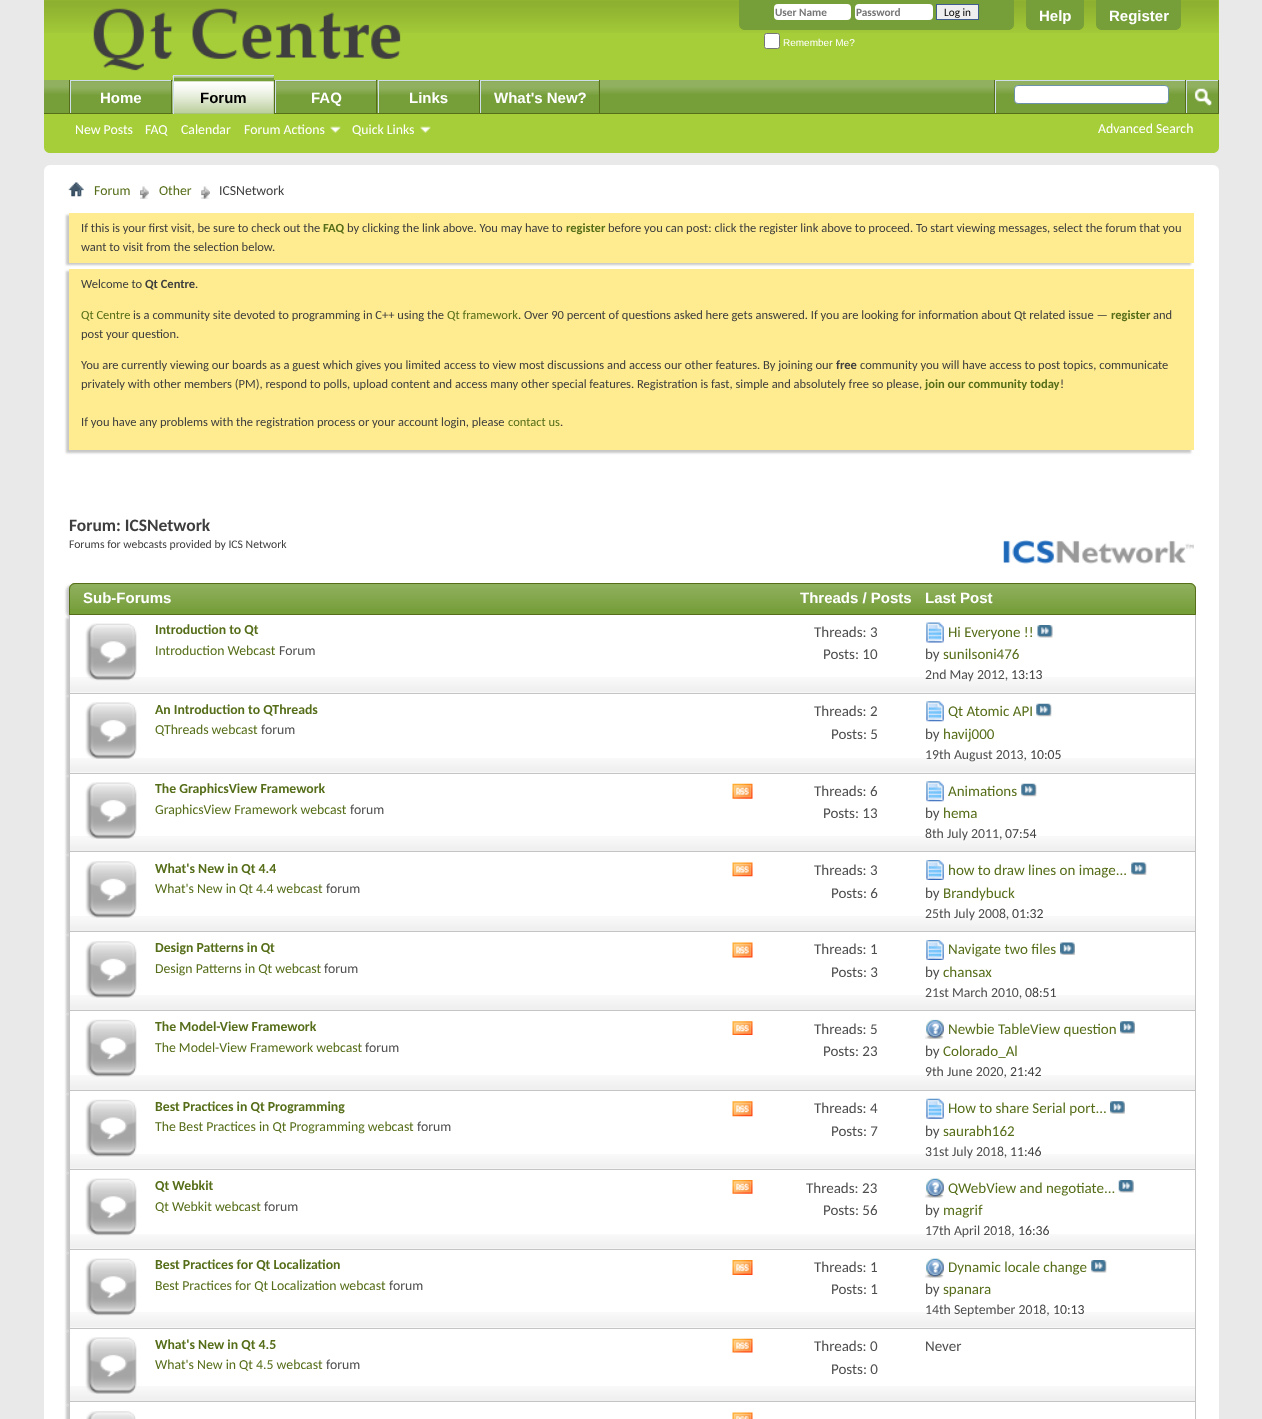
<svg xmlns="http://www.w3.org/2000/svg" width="1262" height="1419">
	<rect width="100%" height="100%" fill="#E9E9E9" />
	<path d="M44 0H1219V147C1219 150.5 1216.5 153 1213 153H50C46.5 153 44 150.5 44 147Z" fill="#A6CE39" />
	<image x="44" y="0" width="1175" height="33" href="assets/img1.png" />
	<image x="93" y="8" width="308" height="63" href="assets/img2.png" />
	<path d="M739 0H1014V24C1014 27.5 1011.5 30 1008 30H745C741.5 30 739 27.5 739 24Z" fill="#769E39" />
	<rect x="774" y="4" width="77" height="16" rx="4" fill="#FFFFFF" />
	<text x="775" y="16" font-family="Carlito" font-size="11.25" font-weight="700" fill="#777777">User Name</text>
	<rect x="855" y="4" width="78" height="16" rx="4" fill="#FFFFFF" />
	<text x="856" y="16" font-family="Carlito" font-size="11.25" font-weight="700" fill="#777777">Password</text>
	<rect x="936.5" y="4.5" width="42" height="15" fill="#EFEFEF" stroke="#415D8D" />
	<text x="944" y="16" font-family="Carlito" font-size="11.25" fill="#000000">Log in</text>
	<rect x="764.5" y="33.5" width="15" height="15" rx="2" fill="#FFFFFF" stroke="#767676" />
	<text x="783" y="46" font-family="Liberation Sans" font-size="10" fill="#FFFFFF">Remember Me?</text>
	<path d="M1026 0H1084V24C1084 27.5 1081.5 30 1078 30H1032C1028.5 30 1026 27.5 1026 24Z" fill="#769E39" />
	<text x="1039" y="21" font-family="Liberation Sans" font-size="15" font-weight="700" fill="#FFFFFF">Help</text>
	<path d="M1096 0H1181V24C1181 27.5 1178.5 30 1175 30H1102C1098.5 30 1096 27.5 1096 24Z" fill="#769E39" />
	<text x="1109" y="21" font-family="Liberation Sans" font-size="15" font-weight="700" fill="#FFFFFF">Register</text>
	<rect x="44" y="80" width="1174" height="33" fill="#769E39" />
	<image x="44" y="80" width="1174" height="14" href="assets/img3.png" />
	<rect x="171" y="80" width="1" height="34" fill="#566E19" />
	<rect x="69" y="80" width="1" height="34" fill="#566E19" />
	<rect x="71" y="81" width="100" height="13" fill="#769E39" />
	<image x="71" y="81" width="101" height="14" href="assets/img4.png" />
	<rect x="70" y="80" width="101" height="1" fill="#CEDFEB" />
	<rect x="70" y="80" width="1" height="34" fill="#CEDFEB" />
	<text x="100" y="103" font-family="Liberation Sans" font-size="15" font-weight="700" fill="#FFFFFF">Home</text>
	<rect x="274" y="80" width="1" height="33" fill="#566E19" />
	<rect x="376" y="80" width="1" height="34" fill="#566E19" />
	<rect x="275" y="80" width="101" height="1" fill="#CEDFEB" />
	<rect x="275" y="80" width="1" height="34" fill="#CEDFEB" />
	<rect x="479" y="80" width="1" height="34" fill="#566E19" />
	<rect x="379" y="81" width="100" height="13" fill="#769E39" />
	<image x="377" y="81" width="102" height="14" href="assets/img6.png" />
	<rect x="378" y="80" width="101" height="1" fill="#CEDFEB" />
	<rect x="378" y="80" width="1" height="34" fill="#CEDFEB" />
	<rect x="599" y="80" width="1" height="34" fill="#566E19" />
	<rect x="480" y="80" width="119" height="1" fill="#CEDFEB" />
	<rect x="480" y="80" width="1" height="34" fill="#CEDFEB" />
	<rect x="44" y="113" width="1175" height="1" fill="#566E19" />
	<rect x="174" y="76" width="100" height="38" fill="#769E39" />
	<image x="172" y="76" width="102" height="38" href="assets/img5.png" />
	<rect x="173" y="75" width="101" height="1" fill="#CEDFEB" />
	<rect x="173" y="75" width="1" height="39" fill="#CEDFEB" />
	<text x="200" y="103" font-family="Liberation Sans" font-size="15" font-weight="700" fill="#000000">Forum</text>
	<rect x="276" y="81" width="100" height="13" fill="#769E39" />
	<image x="276" y="81" width="101" height="14" href="assets/img4.png" />
	<g font-family="Liberation Sans" font-size="15" font-weight="700" fill="#FFFFFF">
		<text x="311" y="103">FAQ</text>
		<text x="409" y="103">Links</text>
	</g>
	<rect x="481" y="81" width="118" height="13" fill="#769E39" />
	<image x="481" y="81" width="118" height="14" href="assets/img7.png" />
	<text x="494" y="103" font-family="Liberation Sans" font-size="15" font-weight="700" fill="#FFFFFF">What's New?</text>
	<g font-family="Carlito" font-size="13.75" fill="#FFFFFF">
		<text x="75" y="134">New Posts</text>
		<text x="145" y="134">FAQ</text>
		<text x="181" y="134">Calendar</text>
		<text x="244" y="134">Forum Actions</text>
	</g>
	<image x="330" y="126" width="11" height="7" href="assets/img8.png" />
	<text x="352" y="134" font-family="Carlito" font-size="13.75" fill="#FFFFFF">Quick Links</text>
	<image x="420" y="126" width="11" height="7" href="assets/img9.png" />
	<rect x="994" y="80" width="1" height="33" fill="#566E19" />
	<rect x="995" y="80" width="190" height="1" fill="#CEDFEB" />
	<rect x="995" y="80" width="1" height="33" fill="#CEDFEB" />
	<rect x="1014.5" y="85.5" width="154" height="18" rx="3.5" fill="#FFFFFF" stroke="#6B91AB" />
	<rect x="1218" y="80" width="1" height="33" fill="#566E19" />
	<rect x="1185" y="80" width="1" height="33" fill="#566E19" />
	<rect x="1186" y="80" width="32" height="1" fill="#CEDFEB" />
	<rect x="1186" y="80" width="1" height="33" fill="#CEDFEB" />
	<image x="1194" y="88" width="18" height="19" href="assets/img10.png" />
	<text x="1098" y="133" font-family="Carlito" font-size="13.75" fill="#FFFFFF">Advanced Search</text>
	<rect x="44" y="165" width="1175" height="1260" rx="6" fill="#FFFFFF" />
	<image x="68" y="182" width="16" height="15" href="assets/img11.png" />
	<image x="140" y="186" width="9" height="13" href="assets/img12.png" />
	<text x="94" y="195" font-family="Carlito" font-size="13.75" fill="#566E19">Forum</text>
	<image x="201" y="186" width="9" height="13" href="assets/img13.png" />
	<text x="159" y="195" font-family="Carlito" font-size="13.75" fill="#566E19">Other</text>
	<text x="219" y="195" font-family="Carlito" font-size="13.75" fill="#3E3E3E">ICSNetwork</text>
	<rect x="66" y="215" width="1125" height="50" fill="#C8C8C8" filter="blur(1px)" />
	<rect x="69" y="213" width="1125" height="50" fill="#FFEB90" />
	<text x="81" y="232" font-family="Carlito" font-size="12.5" fill="#3E3E3E">If this is your first visit, be sure to check out the</text>
	<text x="323" y="232" font-family="Carlito" font-size="12.5" font-weight="700" fill="#566E19">FAQ</text>
	<text x="347" y="232" font-family="Carlito" font-size="12.5" fill="#3E3E3E">by clicking the link above. You may have to</text>
	<text x="566" y="232" font-family="Carlito" font-size="12.5" font-weight="700" fill="#566E19">register</text>
	<g font-family="Carlito" font-size="12.5" fill="#3E3E3E">
		<text x="608" y="232">before you can post: click the register link above to proceed. To start viewing messages, select the forum that you</text>
		<text x="81" y="251">want to visit from the selection below.</text>
	</g>
	<rect x="66" y="271" width="1125" height="182" fill="#C8C8C8" filter="blur(1px)" />
	<rect x="69" y="269" width="1125" height="181" fill="#FFEB90" />
	<text x="81" y="288" font-family="Carlito" font-size="12.5" fill="#3E3E3E">Welcome to</text>
	<text x="145" y="288" font-family="Carlito" font-size="12.5" font-weight="700" fill="#3E3E3E">Qt Centre</text>
	<text x="195" y="288" font-family="Carlito" font-size="12.5" fill="#3E3E3E">.</text>
	<text x="81" y="319" font-family="Carlito" font-size="12.5" fill="#566E19">Qt Centre</text>
	<text x="133" y="319" font-family="Carlito" font-size="12.5" fill="#3E3E3E">is a community site devoted to programming in C++ using the</text>
	<text x="447" y="319" font-family="Carlito" font-size="12.5" fill="#566E19">Qt framework</text>
	<text x="518" y="319" font-family="Carlito" font-size="12.5" fill="#3E3E3E">. Over 90 percent of questions asked here gets answered. If you are looking for information about Qt related issue —</text>
	<text x="1111" y="319" font-family="Carlito" font-size="12.5" font-weight="700" fill="#566E19">register</text>
	<g font-family="Carlito" font-size="12.5" fill="#3E3E3E">
		<text x="1153" y="319">and</text>
		<text x="81" y="338">post your question.</text>
		<text x="81" y="369">You are currently viewing our boards as a guest which gives you limited access to view most discussions and access our other features. By joining our</text>
	</g>
	<text x="836" y="369" font-family="Carlito" font-size="12.5" font-weight="700" fill="#3E3E3E">free</text>
	<g font-family="Carlito" font-size="12.5" fill="#3E3E3E">
		<text x="860" y="369">community you will have access to post topics, communicate</text>
		<text x="81" y="388">privately with other members (PM), respond to polls, upload content and access many other special features. Registration is fast, simple and absolutely free so please,</text>
	</g>
	<text x="925" y="388" font-family="Carlito" font-size="12.5" font-weight="700" fill="#566E19">join our community today</text>
	<g font-family="Carlito" font-size="12.5" fill="#3E3E3E">
		<text x="1060" y="388">!</text>
		<text x="81" y="426">If you have any problems with the registration process or your account login, please</text>
	</g>
	<text x="508" y="426" font-family="Carlito" font-size="12.5" fill="#566E19">contact us</text>
	<text x="560" y="426" font-family="Carlito" font-size="12.5" fill="#3E3E3E">.</text>
	<text x="69" y="531" font-family="Carlito" font-size="17.5" font-weight="700" fill="#3E3E3E">Forum: ICSNetwork</text>
	<text x="69" y="548" font-family="Carlito" font-size="11.7" fill="#3E3E3E">Forums for webcasts provided by ICS Network</text>
	<image x="1003" y="540" width="191" height="24" href="assets/img14.png" />
	<rect x="66" y="585" width="1128" height="33" rx="6" fill="#C8C8C8" filter="blur(1px)" />
	<path d="M75 583H1190C1193.5 583 1196 585.5 1196 589V615H69V589C69 585.5 71.5 583 75 583Z" fill="#769E39" />
	<image x="69" y="583" width="1127" height="26" href="assets/img15.png" />
	<path d="M75 583.5H1190C1193 583.5 1195.5 586 1195.5 589V614.5H69.5V589C69.5 586 72 583.5 75 583.5Z" fill="none" stroke="#566E19" />
	<g font-family="Liberation Sans" font-size="15" font-weight="700" fill="#FFFFFF">
		<text x="83" y="603">Sub-Forums</text>
		<text x="800" y="603">Threads / Posts</text>
		<text x="925" y="603">Last Post</text>
	</g>
	<rect x="66" y="618" width="1128" height="78" fill="#C8C8C8" filter="blur(1px)" />
	<rect x="70" y="615" width="1125" height="78" fill="#FFFFFF" />
	<image x="70" y="677" width="1125" height="16" href="assets/img16.png" />
	<rect x="1195" y="615" width="1" height="79" fill="#C4C4C4" />
	<rect x="69" y="693" width="1127" height="1" fill="#C4C4C4" />
	<rect x="69" y="615" width="1" height="79" fill="#C4C4C4" />
	<image x="85" y="623" width="52" height="58" href="assets/img17.png" />
	<text x="155" y="634" font-family="Carlito" font-size="13.75" font-weight="700" fill="#566E19">Introduction to Qt</text>
	<text x="155" y="655" font-family="Carlito" font-size="13.75" fill="#566E19">Introduction Webcast</text>
	<text x="279" y="655" font-family="Carlito" font-size="13.75" fill="#4E4E4E">Forum</text>
	<g font-family="Carlito" font-size="15" fill="#4E4E4E">
		<text x="814" y="637">Threads: 3</text>
		<text x="823" y="659">Posts: 10</text>
	</g>
	<image x="926" y="622" width="18" height="21" href="assets/img18.png" />
	<text x="948" y="637" font-family="Carlito" font-size="15" fill="#566E19">Hi Everyone !!</text>
	<image x="1037" y="625" width="16" height="13" href="assets/img19.png" />
	<text x="925" y="659" font-family="Carlito" font-size="15" fill="#4E4E4E">by</text>
	<text x="943" y="659" font-family="Carlito" font-size="15" fill="#566E19">sunilsoni476</text>
	<text x="925" y="679" font-family="Carlito" font-size="13.75" fill="#4E4E4E">2nd May 2012,</text>
	<text x="1011" y="679" font-family="Carlito" font-size="13.75" fill="#3E3E3E">13:13</text>
	<rect x="66" y="696" width="1128" height="80" fill="#C8C8C8" filter="blur(1px)" />
	<rect x="70" y="694" width="1125" height="79" fill="#FFFFFF" />
	<image x="70" y="758" width="1125" height="15" href="assets/img20.png" />
	<rect x="1195" y="694" width="1" height="80" fill="#C4C4C4" />
	<rect x="69" y="773" width="1127" height="1" fill="#C4C4C4" />
	<rect x="69" y="694" width="1" height="80" fill="#C4C4C4" />
	<image x="85" y="702" width="52" height="57" href="assets/img21.png" />
	<text x="155" y="714" font-family="Carlito" font-size="13.75" font-weight="700" fill="#566E19">An Introduction to QThreads</text>
	<text x="155" y="734" font-family="Carlito" font-size="13.75" fill="#566E19">QThreads webcast</text>
	<text x="261" y="734" font-family="Carlito" font-size="13.75" fill="#4E4E4E">forum</text>
	<g font-family="Carlito" font-size="15" fill="#4E4E4E">
		<text x="814" y="716">Threads: 2</text>
		<text x="831" y="739">Posts: 5</text>
	</g>
	<image x="926" y="701" width="18" height="21" href="assets/img22.png" />
	<text x="948" y="716" font-family="Carlito" font-size="15" fill="#566E19">Qt Atomic API</text>
	<image x="1036" y="703" width="16" height="14" href="assets/img23.png" />
	<text x="925" y="739" font-family="Carlito" font-size="15" fill="#4E4E4E">by</text>
	<text x="943" y="739" font-family="Carlito" font-size="15" fill="#566E19">havij000</text>
	<text x="925" y="759" font-family="Carlito" font-size="13.75" fill="#4E4E4E">19th August 2013,</text>
	<text x="1030" y="759" font-family="Carlito" font-size="13.75" fill="#3E3E3E">10:05</text>
	<rect x="66" y="776" width="1128" height="79" fill="#C8C8C8" filter="blur(1px)" />
	<rect x="70" y="774" width="1125" height="79" fill="#FFFFFF" />
	<image x="70" y="836" width="1125" height="15" href="assets/img24.png" />
	<rect x="1195" y="774" width="1" height="79" fill="#C4C4C4" />
	<rect x="69" y="851" width="1127" height="1" fill="#C4C4C4" />
	<rect x="69" y="774" width="1" height="79" fill="#C4C4C4" />
	<image x="85" y="782" width="52" height="57" href="assets/img25.png" />
	<text x="155" y="793" font-family="Carlito" font-size="13.75" font-weight="700" fill="#566E19">The GraphicsView Framework</text>
	<text x="155" y="814" font-family="Carlito" font-size="13.75" fill="#566E19">GraphicsView Framework webcast</text>
	<text x="350" y="814" font-family="Carlito" font-size="13.75" fill="#4E4E4E">forum</text>
	<image x="732" y="783" width="21" height="16" href="assets/img26.png" />
	<g font-family="Carlito" font-size="15" fill="#4E4E4E">
		<text x="814" y="796">Threads: 6</text>
		<text x="823" y="818">Posts: 13</text>
	</g>
	<image x="926" y="781" width="18" height="21" href="assets/img27.png" />
	<text x="948" y="796" font-family="Carlito" font-size="15" fill="#566E19">Animations</text>
	<image x="1021" y="783" width="16" height="14" href="assets/img23.png" />
	<text x="925" y="818" font-family="Carlito" font-size="15" fill="#4E4E4E">by</text>
	<text x="943" y="818" font-family="Carlito" font-size="15" fill="#566E19">hema</text>
	<text x="925" y="838" font-family="Carlito" font-size="13.75" fill="#4E4E4E">8th July 2011,</text>
	<text x="1005" y="838" font-family="Carlito" font-size="13.75" fill="#3E3E3E">07:54</text>
	<rect x="66" y="855" width="1128" height="80" fill="#C8C8C8" filter="blur(1px)" />
	<rect x="70" y="853" width="1125" height="80" fill="#FFFFFF" />
	<image x="70" y="916" width="1125" height="15" href="assets/img24.png" />
	<rect x="1195" y="853" width="1" height="80" fill="#C4C4C4" />
	<rect x="69" y="931" width="1127" height="1" fill="#C4C4C4" />
	<rect x="69" y="853" width="1" height="80" fill="#C4C4C4" />
	<image x="85" y="861" width="52" height="57" href="assets/img28.png" />
	<text x="155" y="873" font-family="Carlito" font-size="13.75" font-weight="700" fill="#566E19">What's New in Qt 4.4</text>
	<text x="155" y="893" font-family="Carlito" font-size="13.75" fill="#566E19">What's New in Qt 4.4 webcast</text>
	<text x="326" y="893" font-family="Carlito" font-size="13.75" fill="#4E4E4E">forum</text>
	<image x="732" y="862" width="21" height="15" href="assets/img29.png" />
	<g font-family="Carlito" font-size="15" fill="#4E4E4E">
		<text x="814" y="875">Threads: 3</text>
		<text x="831" y="898">Posts: 6</text>
	</g>
	<image x="926" y="860" width="18" height="20" href="assets/img30.png" />
	<text x="948" y="875" font-family="Carlito" font-size="15" fill="#566E19">how to draw lines on image...</text>
	<image x="1131" y="862" width="16" height="13" href="assets/img31.png" />
	<text x="925" y="898" font-family="Carlito" font-size="15" fill="#4E4E4E">by</text>
	<text x="943" y="898" font-family="Carlito" font-size="15" fill="#566E19">Brandybuck</text>
	<text x="925" y="918" font-family="Carlito" font-size="13.75" fill="#4E4E4E">25th July 2008,</text>
	<text x="1012" y="918" font-family="Carlito" font-size="13.75" fill="#3E3E3E">01:32</text>
	<rect x="66" y="935" width="1128" height="79" fill="#C8C8C8" filter="blur(1px)" />
	<rect x="70" y="933" width="1125" height="77" fill="#FFFFFF" />
	<image x="70" y="995" width="1125" height="15" href="assets/img32.png" />
	<rect x="1195" y="933" width="1" height="78" fill="#C4C4C4" />
	<rect x="69" y="1010" width="1127" height="1" fill="#C4C4C4" />
	<rect x="69" y="933" width="1" height="78" fill="#C4C4C4" />
	<image x="85" y="941" width="52" height="57" href="assets/img33.png" />
	<text x="155" y="952" font-family="Carlito" font-size="13.75" font-weight="700" fill="#566E19">Design Patterns in Qt</text>
	<text x="155" y="973" font-family="Carlito" font-size="13.75" fill="#566E19">Design Patterns in Qt webcast</text>
	<text x="324" y="973" font-family="Carlito" font-size="13.75" fill="#4E4E4E">forum</text>
	<image x="732" y="942" width="21" height="16" href="assets/img34.png" />
	<g font-family="Carlito" font-size="15" fill="#4E4E4E">
		<text x="814" y="954">Threads: 1</text>
		<text x="831" y="977">Posts: 3</text>
	</g>
	<image x="926" y="940" width="18" height="20" href="assets/img30.png" />
	<text x="948" y="954" font-family="Carlito" font-size="15" fill="#566E19">Navigate two files</text>
	<image x="1060" y="942" width="15" height="13" href="assets/img35.png" />
	<text x="925" y="977" font-family="Carlito" font-size="15" fill="#4E4E4E">by</text>
	<text x="943" y="977" font-family="Carlito" font-size="15" fill="#566E19">chansax</text>
	<text x="925" y="997" font-family="Carlito" font-size="13.75" fill="#4E4E4E">21st March 2010,</text>
	<text x="1025" y="997" font-family="Carlito" font-size="13.75" fill="#3E3E3E">08:51</text>
	<rect x="66" y="1014" width="1128" height="80" fill="#C8C8C8" filter="blur(1px)" />
	<rect x="70" y="1011" width="1125" height="79" fill="#FFFFFF" />
	<image x="70" y="1075" width="1125" height="15" href="assets/img36.png" />
	<rect x="1195" y="1011" width="1" height="80" fill="#C4C4C4" />
	<rect x="69" y="1090" width="1127" height="1" fill="#C4C4C4" />
	<rect x="69" y="1011" width="1" height="80" fill="#C4C4C4" />
	<image x="85" y="1019" width="52" height="58" href="assets/img37.png" />
	<text x="155" y="1031" font-family="Carlito" font-size="13.75" font-weight="700" fill="#566E19">The Model-View Framework</text>
	<text x="155" y="1052" font-family="Carlito" font-size="13.75" fill="#566E19">The Model-View Framework webcast</text>
	<text x="365" y="1052" font-family="Carlito" font-size="13.75" fill="#4E4E4E">forum</text>
	<image x="732" y="1021" width="21" height="14" href="assets/img38.png" />
	<g font-family="Carlito" font-size="15" fill="#4E4E4E">
		<text x="814" y="1034">Threads: 5</text>
		<text x="823" y="1056">Posts: 23</text>
	</g>
	<image x="925" y="1019" width="19" height="20" href="assets/img39.png" />
	<text x="948" y="1034" font-family="Carlito" font-size="15" fill="#566E19">Newbie TableView question</text>
	<image x="1120" y="1021" width="15" height="13" href="assets/img40.png" />
	<text x="925" y="1056" font-family="Carlito" font-size="15" fill="#4E4E4E">by</text>
	<text x="943" y="1056" font-family="Carlito" font-size="15" fill="#566E19">Colorado_Al</text>
	<text x="925" y="1076" font-family="Carlito" font-size="13.75" fill="#4E4E4E">9th June 2020,</text>
	<text x="1010" y="1076" font-family="Carlito" font-size="13.75" fill="#3E3E3E">21:42</text>
	<rect x="66" y="1094" width="1128" height="79" fill="#C8C8C8" filter="blur(1px)" />
	<rect x="70" y="1091" width="1125" height="78" fill="#FFFFFF" />
	<image x="70" y="1154" width="1125" height="15" href="assets/img41.png" />
	<rect x="1195" y="1091" width="1" height="79" fill="#C4C4C4" />
	<rect x="69" y="1169" width="1127" height="1" fill="#C4C4C4" />
	<rect x="69" y="1091" width="1" height="79" fill="#C4C4C4" />
	<image x="85" y="1099" width="52" height="58" href="assets/img42.png" />
	<text x="155" y="1111" font-family="Carlito" font-size="13.75" font-weight="700" fill="#566E19">Best Practices in Qt Programming</text>
	<text x="155" y="1131" font-family="Carlito" font-size="13.75" fill="#566E19">The Best Practices in Qt Programming webcast</text>
	<text x="417" y="1131" font-family="Carlito" font-size="13.75" fill="#4E4E4E">forum</text>
	<image x="732" y="1101" width="21" height="16" href="assets/img43.png" />
	<g font-family="Carlito" font-size="15" fill="#4E4E4E">
		<text x="814" y="1113">Threads: 4</text>
		<text x="831" y="1136">Posts: 7</text>
	</g>
	<image x="926" y="1098" width="18" height="21" href="assets/img44.png" />
	<text x="948" y="1113" font-family="Carlito" font-size="15" fill="#566E19">How to share Serial port...</text>
	<image x="1110" y="1101" width="15" height="13" href="assets/img45.png" />
	<text x="925" y="1136" font-family="Carlito" font-size="15" fill="#4E4E4E">by</text>
	<text x="943" y="1136" font-family="Carlito" font-size="15" fill="#566E19">saurabh162</text>
	<text x="925" y="1156" font-family="Carlito" font-size="13.75" fill="#4E4E4E">31st July 2018,</text>
	<text x="1010" y="1156" font-family="Carlito" font-size="13.75" fill="#3E3E3E">11:46</text>
	<rect x="66" y="1173" width="1128" height="80" fill="#C8C8C8" filter="blur(1px)" />
	<rect x="70" y="1170" width="1125" height="79" fill="#FFFFFF" />
	<image x="70" y="1234" width="1125" height="15" href="assets/img46.png" />
	<rect x="1195" y="1170" width="1" height="80" fill="#C4C4C4" />
	<rect x="69" y="1249" width="1127" height="1" fill="#C4C4C4" />
	<rect x="69" y="1170" width="1" height="80" fill="#C4C4C4" />
	<image x="85" y="1178" width="52" height="58" href="assets/img47.png" />
	<text x="155" y="1190" font-family="Carlito" font-size="13.75" font-weight="700" fill="#566E19">Qt Webkit</text>
	<text x="155" y="1211" font-family="Carlito" font-size="13.75" fill="#566E19">Qt Webkit webcast</text>
	<text x="264" y="1211" font-family="Carlito" font-size="13.75" fill="#4E4E4E">forum</text>
	<image x="732" y="1180" width="21" height="14" href="assets/img48.png" />
	<g font-family="Carlito" font-size="15" fill="#4E4E4E">
		<text x="806" y="1193">Threads: 23</text>
		<text x="823" y="1215">Posts: 56</text>
	</g>
	<image x="925" y="1178" width="19" height="20" href="assets/img49.png" />
	<text x="948" y="1193" font-family="Carlito" font-size="15" fill="#566E19">QWebView and negotiate...</text>
	<image x="1118" y="1180" width="16" height="13" href="assets/img50.png" />
	<text x="925" y="1215" font-family="Carlito" font-size="15" fill="#4E4E4E">by</text>
	<text x="943" y="1215" font-family="Carlito" font-size="15" fill="#566E19">magrif</text>
	<text x="925" y="1235" font-family="Carlito" font-size="13.75" fill="#4E4E4E">17th April 2018,</text>
	<text x="1018" y="1235" font-family="Carlito" font-size="13.75" fill="#3E3E3E">16:36</text>
	<rect x="66" y="1253" width="1128" height="78" fill="#C8C8C8" filter="blur(1px)" />
	<rect x="70" y="1250" width="1125" height="78" fill="#FFFFFF" />
	<image x="70" y="1312" width="1125" height="16" href="assets/img16.png" />
	<rect x="1195" y="1250" width="1" height="79" fill="#C4C4C4" />
	<rect x="69" y="1328" width="1127" height="1" fill="#C4C4C4" />
	<rect x="69" y="1250" width="1" height="79" fill="#C4C4C4" />
	<image x="85" y="1258" width="52" height="58" href="assets/img17.png" />
	<text x="155" y="1269" font-family="Carlito" font-size="13.75" font-weight="700" fill="#566E19">Best Practices for Qt Localization</text>
	<text x="155" y="1290" font-family="Carlito" font-size="13.75" fill="#566E19">Best Practices for Qt Localization webcast</text>
	<text x="389" y="1290" font-family="Carlito" font-size="13.75" fill="#4E4E4E">forum</text>
	<image x="732" y="1260" width="21" height="15" href="assets/img51.png" />
	<g font-family="Carlito" font-size="15" fill="#4E4E4E">
		<text x="814" y="1272">Threads: 1</text>
		<text x="831" y="1294">Posts: 1</text>
	</g>
	<image x="925" y="1258" width="19" height="20" href="assets/img49.png" />
	<text x="948" y="1272" font-family="Carlito" font-size="15" fill="#566E19">Dynamic locale change</text>
	<image x="1091" y="1260" width="16" height="13" href="assets/img52.png" />
	<text x="925" y="1294" font-family="Carlito" font-size="15" fill="#4E4E4E">by</text>
	<text x="943" y="1294" font-family="Carlito" font-size="15" fill="#566E19">spanara</text>
	<text x="925" y="1314" font-family="Carlito" font-size="13.75" fill="#4E4E4E">14th September 2018,</text>
	<text x="1053" y="1314" font-family="Carlito" font-size="13.75" fill="#3E3E3E">10:13</text>
	<rect x="66" y="1331" width="1128" height="74" fill="#C8C8C8" filter="blur(1px)" />
	<rect x="70" y="1329" width="1125" height="74" fill="#FFFFFF" />
	<image x="70" y="1386" width="1125" height="15" href="assets/img32.png" />
	<rect x="1195" y="1329" width="1" height="74" fill="#C4C4C4" />
	<rect x="69" y="1401" width="1127" height="1" fill="#C4C4C4" />
	<rect x="69" y="1329" width="1" height="74" fill="#C4C4C4" />
	<image x="85" y="1337" width="52" height="57" href="assets/img53.png" />
	<text x="155" y="1349" font-family="Carlito" font-size="13.75" font-weight="700" fill="#566E19">What's New in Qt 4.5</text>
	<text x="155" y="1369" font-family="Carlito" font-size="13.75" fill="#566E19">What's New in Qt 4.5 webcast</text>
	<text x="326" y="1369" font-family="Carlito" font-size="13.75" fill="#4E4E4E">forum</text>
	<image x="732" y="1338" width="21" height="15" href="assets/img54.png" />
	<g font-family="Carlito" font-size="15" fill="#4E4E4E">
		<text x="814" y="1351">Threads: 0</text>
		<text x="831" y="1374">Posts: 0</text>
		<text x="925" y="1351">Never</text>
	</g>
	<rect x="66" y="1405" width="1128" height="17" fill="#C8C8C8" filter="blur(1px)" />
	<rect x="70" y="1403" width="1125" height="16" fill="#FFFFFF" />
	<rect x="1195" y="1403" width="1" height="16" fill="#C4C4C4" />
	<rect x="69" y="1403" width="1" height="16" fill="#C4C4C4" />
	<image x="86" y="1411" width="50" height="8" href="assets/img55.png" />
	<image x="732" y="1412" width="21" height="7" href="assets/img56.png" />
</svg>
